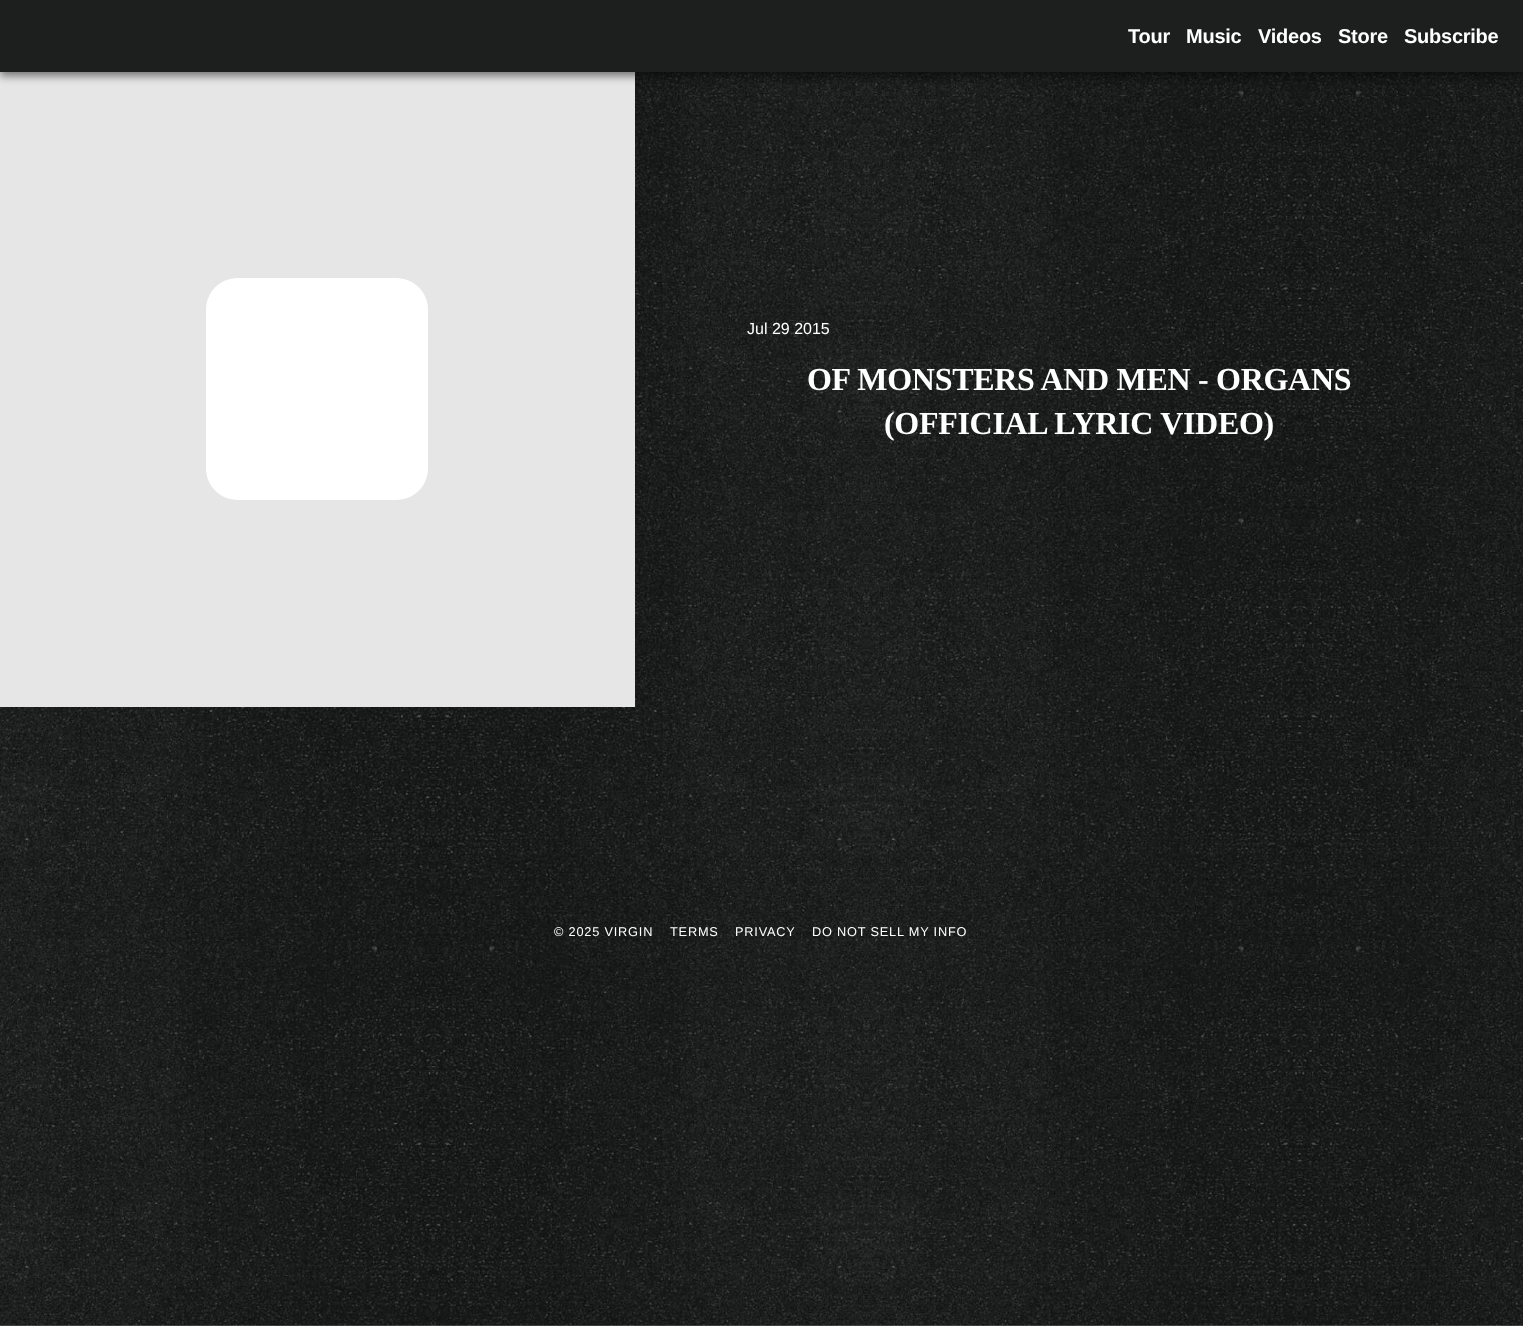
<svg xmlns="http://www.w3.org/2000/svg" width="1523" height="1326">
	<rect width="100%" height="100%" fill="#FFFFFF" />
	<image x="0" y="72" width="1523" height="1254" href="assets/img1.png" />
	<rect x="0" y="72" width="635" height="635" fill="#E6E6E6" />
	<rect x="0" y="4" width="1523" height="72" fill="#000000" fill-opacity="0.5" filter="blur(4px)" />
	<rect x="0" y="0" width="1523" height="72" fill="#1C1F1E" />
	<g font-family="Liberation Sans" font-size="20" font-weight="700" letter-spacing="-0.25" fill="#FFFFFF">
		<text x="1128" y="43">Tour</text>
		<text x="1186" y="43">Music</text>
		<text x="1258" y="43">Videos</text>
		<text x="1338" y="43">Store</text>
		<text x="1404" y="43">Subscribe</text>
	</g>
	<path d="M206 310C206 292 220 278 238 278H396C414 278 428 292 428 310V468C428 486 414 500 396 500H238C220 500 206 486 206 468Z" fill="#FFFFFF" />
	<text x="747" y="334" font-family="Liberation Sans" font-size="16" fill="#FFFFFF">Jul 29 2015</text>
	<g font-family="Liberation Serif" font-size="32" font-weight="700" letter-spacing="-0.3" fill="#FFFFFF">
		<text x="807" y="390">OF MONSTERS AND MEN - ORGANS</text>
		<text x="884" y="434">(OFFICIAL LYRIC VIDEO)</text>
	</g>
	<g font-family="Liberation Sans" font-size="12.75" letter-spacing="0.8" fill="#FFFFFF">
		<text x="554" y="936">© 2025 VIRGIN</text>
		<text x="670" y="936">TERMS</text>
		<text x="735" y="936">PRIVACY</text>
		<text x="812" y="936">DO NOT SELL MY INFO</text>
	</g>
</svg>
